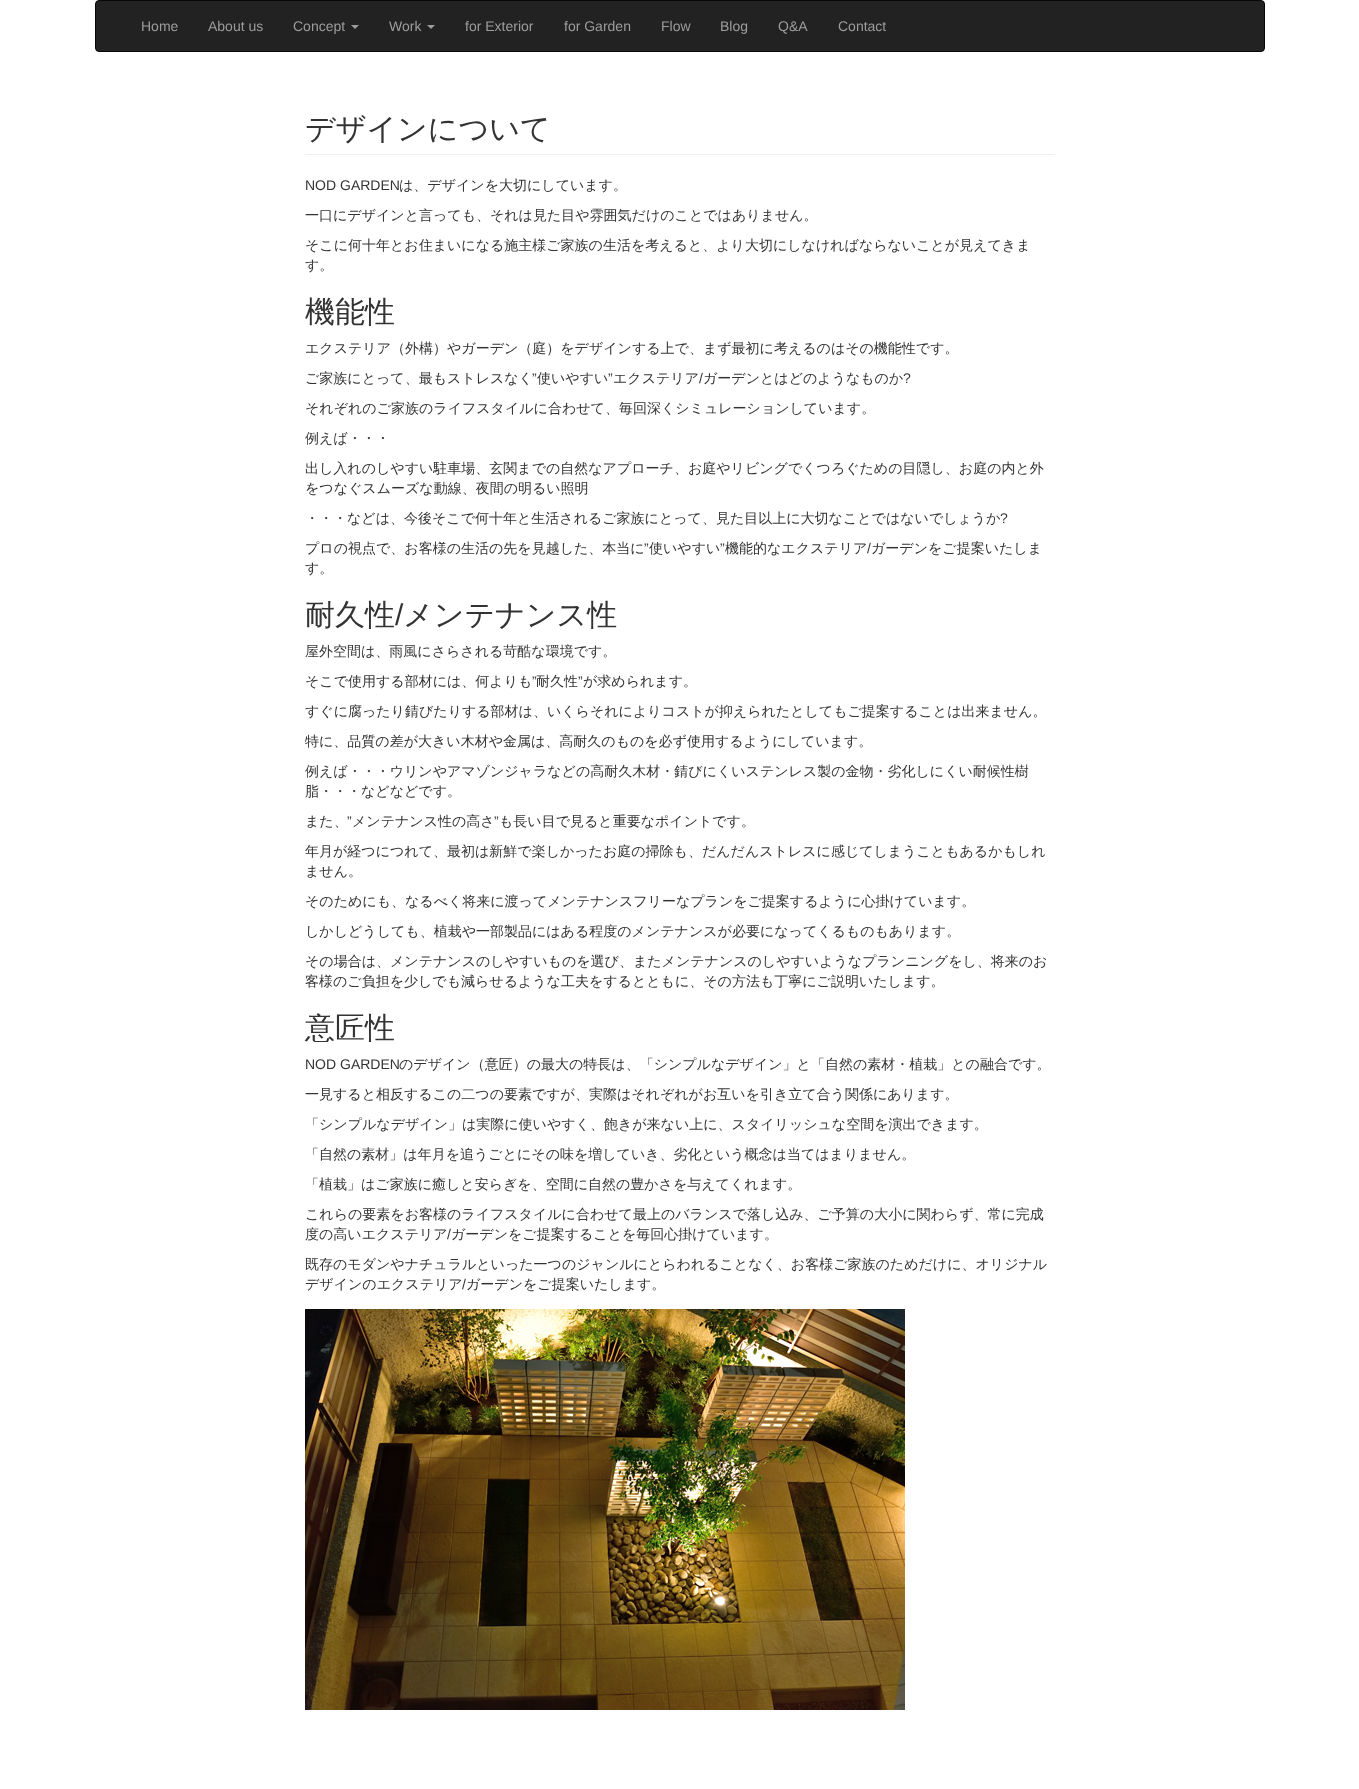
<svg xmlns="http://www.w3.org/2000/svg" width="1359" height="1789">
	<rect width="100%" height="100%" fill="#FFFFFF" />
	<rect x="95.5" y="0.5" width="1169" height="51" rx="3.5" fill="#222222" stroke="#080808" />
	<g font-family="Liberation Sans" font-size="14" fill="#9D9D9D">
		<text x="141" y="31">Home</text>
		<text x="208" y="31">About us</text>
		<text x="293" y="31">Concept</text>
	</g>
	<path d="M351 25H359L355 29Z" fill="#9D9D9D" />
	<text x="389" y="31" font-family="Liberation Sans" font-size="14" fill="#9D9D9D">Work</text>
	<path d="M427 25H435L431 29Z" fill="#9D9D9D" />
	<g font-family="Liberation Sans" font-size="14" fill="#9D9D9D">
		<text x="465" y="31">for Exterior</text>
		<text x="564" y="31">for Garden</text>
		<text x="661" y="31">Flow</text>
		<text x="720" y="31">Blog</text>
		<text x="778" y="31">Q&amp;A</text>
		<text x="838" y="31">Contact</text>
	</g>
	<rect x="305" y="154" width="750" height="1" fill="#EEEEEE" />
	<text x="305" y="139" font-family="WenQuanYi Zen Hei" font-size="30" font-weight="500" fill="#333333">デザインについて</text>
	<text x="305" y="190" font-family="Liberation Sans" font-size="14" fill="#333333">NOD GARDEN</text>
	<g font-family="WenQuanYi Zen Hei" font-size="14" font-weight="500" fill="#333333">
		<text x="399" y="190">は、デザインを大切にしています。</text>
		<text x="305" y="220">一口にデザインと言っても、それは見た目や雰囲気だけのことではありません。</text>
		<text x="305" y="250">そこに何十年とお住まいになる施主様ご家族の生活を考えると、より大切にしなければならないことが見えてきま</text>
		<text x="305" y="270">す。</text>
	</g>
	<text x="305" y="322" font-family="WenQuanYi Zen Hei" font-size="30" font-weight="500" fill="#333333">機能性</text>
	<g font-family="WenQuanYi Zen Hei" font-size="14" font-weight="500" fill="#333333">
		<text x="305" y="353">エクステリア（外構）やガーデン（庭）をデザインする上で、まず最初に考えるのはその機能性です。</text>
		<text x="305" y="383">ご家族にとって、最もストレスなく</text>
	</g>
	<text x="532" y="383" font-family="Liberation Sans" font-size="14" fill="#333333">”</text>
	<text x="537" y="383" font-family="WenQuanYi Zen Hei" font-size="14" font-weight="500" fill="#333333">使いやすい</text>
	<text x="608" y="383" font-family="Liberation Sans" font-size="14" fill="#333333">”</text>
	<text x="613" y="383" font-family="WenQuanYi Zen Hei" font-size="14" font-weight="500" fill="#333333">エクステリア</text>
	<text x="699" y="383" font-family="Liberation Sans" font-size="14" fill="#333333">/</text>
	<text x="703" y="383" font-family="WenQuanYi Zen Hei" font-size="14" font-weight="500" fill="#333333">ガーデンとはどのようなものか</text>
	<text x="903" y="383" font-family="Liberation Sans" font-size="14" fill="#333333">?</text>
	<g font-family="WenQuanYi Zen Hei" font-size="14" font-weight="500" fill="#333333">
		<text x="305" y="413">それぞれのご家族のライフスタイルに合わせて、毎回深くシミュレーションしています。</text>
		<text x="305" y="443">例えば・・・</text>
		<text x="305" y="473">出し入れのしやすい駐車場、玄関までの自然なアプローチ、お庭やリビングでくつろぐための目隠し、お庭の内と外</text>
		<text x="305" y="493">をつなぐスムーズな動線、夜間の明るい照明</text>
		<text x="305" y="523">・・・などは、今後そこで何十年と生活されるご家族にとって、見た目以上に大切なことではないでしょうか</text>
	</g>
	<text x="1000" y="523" font-family="Liberation Sans" font-size="14" fill="#333333">?</text>
	<text x="305" y="553" font-family="WenQuanYi Zen Hei" font-size="14" font-weight="500" fill="#333333">プロの視点で、お客様の生活の先を見越した、本当に</text>
	<text x="644" y="553" font-family="Liberation Sans" font-size="14" fill="#333333">”</text>
	<text x="649" y="553" font-family="WenQuanYi Zen Hei" font-size="14" font-weight="500" fill="#333333">使いやすい</text>
	<text x="720" y="553" font-family="Liberation Sans" font-size="14" fill="#333333">”</text>
	<text x="725" y="553" font-family="WenQuanYi Zen Hei" font-size="14" font-weight="500" fill="#333333">機能的なエクステリア</text>
	<text x="867" y="553" font-family="Liberation Sans" font-size="14" fill="#333333">/</text>
	<g font-family="WenQuanYi Zen Hei" font-size="14" font-weight="500" fill="#333333">
		<text x="871" y="553">ガーデンをご提案いたしま</text>
		<text x="305" y="573">す。</text>
	</g>
	<text x="305" y="625" font-family="WenQuanYi Zen Hei" font-size="30" font-weight="500" fill="#333333">耐久性</text>
	<text x="395" y="625" font-family="Liberation Sans" font-size="30" fill="#333333">/</text>
	<text x="403" y="625" font-family="WenQuanYi Zen Hei" font-size="30" font-weight="500" fill="#333333">メンテナンス性</text>
	<g font-family="WenQuanYi Zen Hei" font-size="14" font-weight="500" fill="#333333">
		<text x="305" y="656">屋外空間は、雨風にさらされる苛酷な環境です。</text>
		<text x="305" y="686">そこで使用する部材には、何よりも</text>
	</g>
	<text x="532" y="686" font-family="Liberation Sans" font-size="14" fill="#333333">”</text>
	<text x="536" y="686" font-family="WenQuanYi Zen Hei" font-size="14" font-weight="500" fill="#333333">耐久性</text>
	<text x="578" y="686" font-family="Liberation Sans" font-size="14" fill="#333333">”</text>
	<g font-family="WenQuanYi Zen Hei" font-size="14" font-weight="500" fill="#333333">
		<text x="583" y="686">が求められます。</text>
		<text x="305" y="716">すぐに腐ったり錆びたりする部材は、いくらそれによりコストが抑えられたとしてもご提案することは出来ません。</text>
		<text x="305" y="746">特に、品質の差が大きい木材や金属は、高耐久のものを必ず使用するようにしています。</text>
		<text x="305" y="776">例えば・・・ウリンやアマゾンジャラなどの高耐久木材・錆びにくいステンレス製の金物・劣化しにくい耐候性樹</text>
		<text x="305" y="796">脂・・・などなどです。</text>
		<text x="305" y="826">また、</text>
	</g>
	<text x="347" y="826" font-family="Liberation Sans" font-size="14" fill="#333333">”</text>
	<text x="352" y="826" font-family="WenQuanYi Zen Hei" font-size="14" font-weight="500" fill="#333333">メンテナンス性の高さ</text>
	<text x="494" y="826" font-family="Liberation Sans" font-size="14" fill="#333333">”</text>
	<g font-family="WenQuanYi Zen Hei" font-size="14" font-weight="500" fill="#333333">
		<text x="499" y="826">も長い目で見ると重要なポイントです。</text>
		<text x="305" y="856">年月が経つにつれて、最初は新鮮で楽しかったお庭の掃除も、だんだんストレスに感じてしまうこともあるかもしれ</text>
		<text x="305" y="876">ません。</text>
		<text x="305" y="906">そのためにも、なるべく将来に渡ってメンテナンスフリーなプランをご提案するように心掛けています。</text>
		<text x="305" y="936">しかしどうしても、植栽や一部製品にはある程度のメンテナンスが必要になってくるものもあります。</text>
		<text x="305" y="966">その場合は、メンテナンスのしやすいものを選び、またメンテナンスのしやすいようなプランニングをし、将来のお</text>
		<text x="305" y="986">客様のご負担を少しでも減らせるような工夫をするとともに、その方法も丁寧にご説明いたします。</text>
	</g>
	<text x="305" y="1038" font-family="WenQuanYi Zen Hei" font-size="30" font-weight="500" fill="#333333">意匠性</text>
	<text x="305" y="1069" font-family="Liberation Sans" font-size="14" fill="#333333">NOD GARDEN</text>
	<g font-family="WenQuanYi Zen Hei" font-size="14" font-weight="500" fill="#333333">
		<text x="399" y="1069">のデザイン（意匠）の最大の特長は、「シンプルなデザイン」と「自然の素材・植栽」との融合です。</text>
		<text x="305" y="1099">一見すると相反するこの二つの要素ですが、実際はそれぞれがお互いを引き立て合う関係にあります。</text>
		<text x="305" y="1129">「シンプルなデザイン」は実際に使いやすく、飽きが来ない上に、スタイリッシュな空間を演出できます。</text>
		<text x="305" y="1159">「自然の素材」は年月を追うごとにその味を増していき、劣化という概念は当てはまりません。</text>
		<text x="305" y="1189">「植栽」はご家族に癒しと安らぎを、空間に自然の豊かさを与えてくれます。</text>
		<text x="305" y="1219">これらの要素をお客様のライフスタイルに合わせて最上のバランスで落し込み、ご予算の大小に関わらず、常に完成</text>
		<text x="305" y="1239">度の高いエクステリア</text>
	</g>
	<text x="447" y="1239" font-family="Liberation Sans" font-size="14" fill="#333333">/</text>
	<g font-family="WenQuanYi Zen Hei" font-size="14" font-weight="500" fill="#333333">
		<text x="451" y="1239">ガーデンをご提案することを毎回心掛けています。</text>
		<text x="305" y="1269">既存のモダンやナチュラルといった一つのジャンルにとらわれることなく、お客様ご家族のためだけに、オリジナル</text>
		<text x="305" y="1289">デザインのエクステリア</text>
	</g>
	<text x="462" y="1289" font-family="Liberation Sans" font-size="14" fill="#333333">/</text>
	<text x="466" y="1289" font-family="WenQuanYi Zen Hei" font-size="14" font-weight="500" fill="#333333">ガーデンをご提案いたします。</text>
	<image x="305" y="1309" width="600" height="401" href="assets/img1.png" />
</svg>
